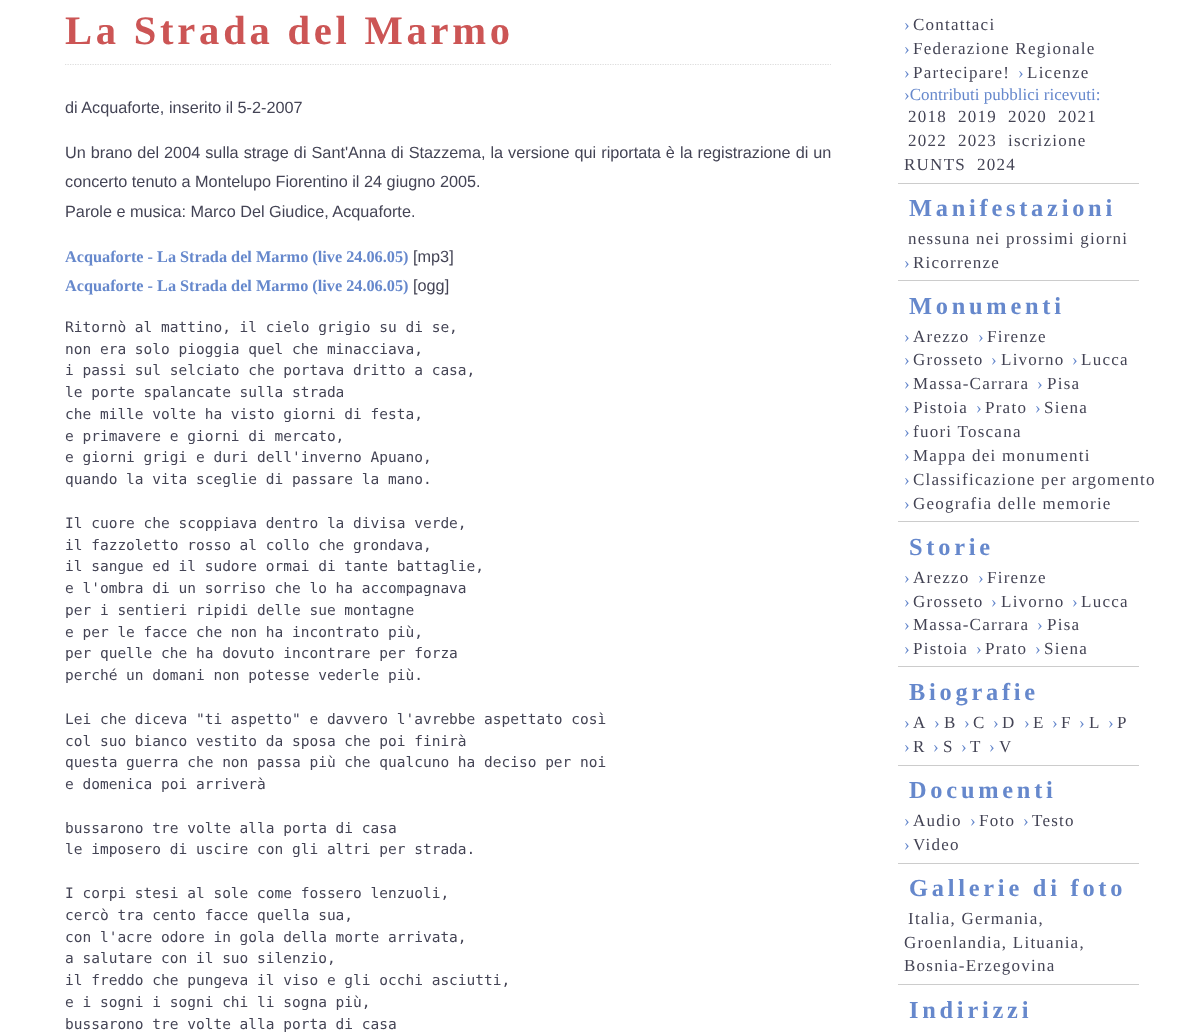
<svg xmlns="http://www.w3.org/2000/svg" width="1203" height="1033">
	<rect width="100%" height="100%" fill="#FFFFFF" />
	<path d="M65 64.5H831" fill="none" stroke="#DDDDDD" stroke-width="1.2" stroke-dasharray="1.25 1.25" />
	<text x="65" y="44" font-family="Liberation Serif" font-size="40.6" font-weight="700" letter-spacing="3.75" fill="#CC5555">La Strada del Marmo</text>
	<g font-family="Liberation Sans" font-size="16.25" fill="#444455">
		<text x="65" y="113">di Acquaforte, inserito il 5-2-2007</text>
		<text x="65" y="158" word-spacing="0.5">Un brano del 2004 sulla strage di Sant'Anna di Stazzema, la versione qui riportata è la registrazione di un</text>
		<text x="65" y="187">concerto tenuto a Montelupo Fiorentino il 24 giugno 2005.</text>
		<text x="65" y="217">Parole e musica: Marco Del Giudice, Acquaforte.</text>
	</g>
	<text x="65" y="262" font-family="Liberation Serif" font-size="16.25" font-weight="700" fill="#6688CC">Acquaforte - La Strada del Marmo (live 24.06.05)</text>
	<text x="413" y="262" font-family="Liberation Sans" font-size="16.25" fill="#444455">[mp3]</text>
	<text x="65" y="291" font-family="Liberation Serif" font-size="16.25" font-weight="700" fill="#6688CC">Acquaforte - La Strada del Marmo (live 24.06.05)</text>
	<text x="413" y="291" font-family="Liberation Sans" font-size="16.25" fill="#444455">[ogg]</text>
	<g font-family="DejaVu Sans Mono" font-size="14.5" fill="#444455">
		<text x="65" y="332">Ritornò al mattino, il cielo grigio su di se,</text>
		<text x="65" y="354">non era solo pioggia quel che minacciava,</text>
		<text x="65" y="375">i passi sul selciato che portava dritto a casa,</text>
		<text x="65" y="397">le porte spalancate sulla strada</text>
		<text x="65" y="419">che mille volte ha visto giorni di festa,</text>
		<text x="65" y="441">e primavere e giorni di mercato,</text>
		<text x="65" y="462">e giorni grigi e duri dell'inverno Apuano,</text>
		<text x="65" y="484">quando la vita sceglie di passare la mano.</text>
		<text x="65" y="528">Il cuore che scoppiava dentro la divisa verde,</text>
		<text x="65" y="550">il fazzoletto rosso al collo che grondava,</text>
		<text x="65" y="571">il sangue ed il sudore ormai di tante battaglie,</text>
		<text x="65" y="593">e l'ombra di un sorriso che lo ha accompagnava</text>
		<text x="65" y="615">per i sentieri ripidi delle sue montagne</text>
		<text x="65" y="637">e per le facce che non ha incontrato più,</text>
		<text x="65" y="658">per quelle che ha dovuto incontrare per forza</text>
		<text x="65" y="680">perché un domani non potesse vederle più.</text>
		<text x="65" y="724">Lei che diceva "ti aspetto" e davvero l'avrebbe aspettato così</text>
		<text x="65" y="746">col suo bianco vestito da sposa che poi finirà</text>
		<text x="65" y="767">questa guerra che non passa più che qualcuno ha deciso per noi</text>
		<text x="65" y="789">e domenica poi arriverà</text>
		<text x="65" y="833">bussarono tre volte alla porta di casa</text>
		<text x="65" y="854">le imposero di uscire con gli altri per strada.</text>
		<text x="65" y="898">I corpi stesi al sole come fossero lenzuoli,</text>
		<text x="65" y="920">cercò tra cento facce quella sua,</text>
		<text x="65" y="942">con l'acre odore in gola della morte arrivata,</text>
		<text x="65" y="963">a salutare con il suo silenzio,</text>
		<text x="65" y="985">il freddo che pungeva il viso e gli occhi asciutti,</text>
		<text x="65" y="1007">e i sogni i sogni chi li sogna più,</text>
		<text x="65" y="1029">bussarono tre volte alla porta di casa</text>
	</g>
	<rect x="898" y="183" width="241" height="1" fill="#CCCCCC" />
	<text x="904" y="30" font-family="Liberation Serif" font-size="17" fill="#6688CC">›</text>
	<text x="913" y="30" font-family="Liberation Serif" font-size="17" letter-spacing="1.25" fill="#444455">Contattaci</text>
	<text x="904" y="54" font-family="Liberation Serif" font-size="17" fill="#6688CC">›</text>
	<text x="913" y="54" font-family="Liberation Serif" font-size="17" letter-spacing="1.25" fill="#444455">Federazione Regionale</text>
	<text x="904" y="78" font-family="Liberation Serif" font-size="17" fill="#6688CC">›</text>
	<text x="913" y="78" font-family="Liberation Serif" font-size="17" letter-spacing="1.25" fill="#444455">Partecipare!</text>
	<text x="1018" y="78" font-family="Liberation Serif" font-size="17" fill="#6688CC">›</text>
	<text x="1027" y="78" font-family="Liberation Serif" font-size="17" letter-spacing="1.25" fill="#444455">Licenze</text>
	<text x="904" y="100" font-family="Liberation Serif" font-size="17" fill="#6688CC">›Contributi pubblici ricevuti:</text>
	<g font-family="Liberation Serif" font-size="17" letter-spacing="1.25" fill="#444455">
		<text x="908" y="122">2018</text>
		<text x="958" y="122">2019</text>
		<text x="1008" y="122">2020</text>
		<text x="1058" y="122">2021</text>
		<text x="908" y="146">2022</text>
		<text x="958" y="146">2023</text>
		<text x="1008" y="146">iscrizione</text>
		<text x="904" y="170">RUNTS</text>
		<text x="977" y="170">2024</text>
	</g>
	<rect x="898" y="280" width="241" height="1" fill="#CCCCCC" />
	<text x="909" y="216" font-family="Liberation Serif" font-size="24.4" font-weight="700" letter-spacing="3.75" fill="#6688CC">Manifestazioni</text>
	<text x="908" y="244" font-family="Liberation Serif" font-size="17" letter-spacing="1.25" fill="#444455">nessuna nei prossimi giorni</text>
	<text x="904" y="268" font-family="Liberation Serif" font-size="17" fill="#6688CC">›</text>
	<text x="913" y="268" font-family="Liberation Serif" font-size="17" letter-spacing="1.25" fill="#444455">Ricorrenze</text>
	<rect x="898" y="521" width="241" height="1" fill="#CCCCCC" />
	<text x="909" y="314" font-family="Liberation Serif" font-size="24.4" font-weight="700" letter-spacing="3.75" fill="#6688CC">Monumenti</text>
	<text x="904" y="342" font-family="Liberation Serif" font-size="17" fill="#6688CC">›</text>
	<text x="913" y="342" font-family="Liberation Serif" font-size="17" letter-spacing="1.25" fill="#444455">Arezzo</text>
	<text x="978" y="342" font-family="Liberation Serif" font-size="17" fill="#6688CC">›</text>
	<text x="987" y="342" font-family="Liberation Serif" font-size="17" letter-spacing="1.25" fill="#444455">Firenze</text>
	<text x="904" y="365" font-family="Liberation Serif" font-size="17" fill="#6688CC">›</text>
	<text x="913" y="365" font-family="Liberation Serif" font-size="17" letter-spacing="1.25" fill="#444455">Grosseto</text>
	<text x="991" y="365" font-family="Liberation Serif" font-size="17" fill="#6688CC">›</text>
	<text x="1001" y="365" font-family="Liberation Serif" font-size="17" letter-spacing="1.25" fill="#444455">Livorno</text>
	<text x="1072" y="365" font-family="Liberation Serif" font-size="17" fill="#6688CC">›</text>
	<text x="1081" y="365" font-family="Liberation Serif" font-size="17" letter-spacing="1.25" fill="#444455">Lucca</text>
	<text x="904" y="389" font-family="Liberation Serif" font-size="17" fill="#6688CC">›</text>
	<text x="913" y="389" font-family="Liberation Serif" font-size="17" letter-spacing="1.25" fill="#444455">Massa-Carrara</text>
	<text x="1037" y="389" font-family="Liberation Serif" font-size="17" fill="#6688CC">›</text>
	<text x="1047" y="389" font-family="Liberation Serif" font-size="17" letter-spacing="1.25" fill="#444455">Pisa</text>
	<text x="904" y="413" font-family="Liberation Serif" font-size="17" fill="#6688CC">›</text>
	<text x="913" y="413" font-family="Liberation Serif" font-size="17" letter-spacing="1.25" fill="#444455">Pistoia</text>
	<text x="976" y="413" font-family="Liberation Serif" font-size="17" fill="#6688CC">›</text>
	<text x="985" y="413" font-family="Liberation Serif" font-size="17" letter-spacing="1.25" fill="#444455">Prato</text>
	<text x="1035" y="413" font-family="Liberation Serif" font-size="17" fill="#6688CC">›</text>
	<text x="1044" y="413" font-family="Liberation Serif" font-size="17" letter-spacing="1.25" fill="#444455">Siena</text>
	<text x="904" y="437" font-family="Liberation Serif" font-size="17" fill="#6688CC">›</text>
	<text x="913" y="437" font-family="Liberation Serif" font-size="17" letter-spacing="1.25" fill="#444455">fuori Toscana</text>
	<text x="904" y="461" font-family="Liberation Serif" font-size="17" fill="#6688CC">›</text>
	<text x="913" y="461" font-family="Liberation Serif" font-size="17" letter-spacing="1.25" fill="#444455">Mappa dei monumenti</text>
	<text x="904" y="485" font-family="Liberation Serif" font-size="17" fill="#6688CC">›</text>
	<text x="913" y="485" font-family="Liberation Serif" font-size="17" letter-spacing="1.25" fill="#444455">Classificazione per argomento</text>
	<text x="904" y="509" font-family="Liberation Serif" font-size="17" fill="#6688CC">›</text>
	<text x="913" y="509" font-family="Liberation Serif" font-size="17" letter-spacing="1.25" fill="#444455">Geografia delle memorie</text>
	<rect x="898" y="666" width="241" height="1" fill="#CCCCCC" />
	<text x="909" y="555" font-family="Liberation Serif" font-size="24.4" font-weight="700" letter-spacing="3.75" fill="#6688CC">Storie</text>
	<text x="904" y="583" font-family="Liberation Serif" font-size="17" fill="#6688CC">›</text>
	<text x="913" y="583" font-family="Liberation Serif" font-size="17" letter-spacing="1.25" fill="#444455">Arezzo</text>
	<text x="978" y="583" font-family="Liberation Serif" font-size="17" fill="#6688CC">›</text>
	<text x="987" y="583" font-family="Liberation Serif" font-size="17" letter-spacing="1.25" fill="#444455">Firenze</text>
	<text x="904" y="607" font-family="Liberation Serif" font-size="17" fill="#6688CC">›</text>
	<text x="913" y="607" font-family="Liberation Serif" font-size="17" letter-spacing="1.25" fill="#444455">Grosseto</text>
	<text x="991" y="607" font-family="Liberation Serif" font-size="17" fill="#6688CC">›</text>
	<text x="1001" y="607" font-family="Liberation Serif" font-size="17" letter-spacing="1.25" fill="#444455">Livorno</text>
	<text x="1072" y="607" font-family="Liberation Serif" font-size="17" fill="#6688CC">›</text>
	<text x="1081" y="607" font-family="Liberation Serif" font-size="17" letter-spacing="1.25" fill="#444455">Lucca</text>
	<text x="904" y="630" font-family="Liberation Serif" font-size="17" fill="#6688CC">›</text>
	<text x="913" y="630" font-family="Liberation Serif" font-size="17" letter-spacing="1.25" fill="#444455">Massa-Carrara</text>
	<text x="1037" y="630" font-family="Liberation Serif" font-size="17" fill="#6688CC">›</text>
	<text x="1047" y="630" font-family="Liberation Serif" font-size="17" letter-spacing="1.25" fill="#444455">Pisa</text>
	<text x="904" y="654" font-family="Liberation Serif" font-size="17" fill="#6688CC">›</text>
	<text x="913" y="654" font-family="Liberation Serif" font-size="17" letter-spacing="1.25" fill="#444455">Pistoia</text>
	<text x="976" y="654" font-family="Liberation Serif" font-size="17" fill="#6688CC">›</text>
	<text x="985" y="654" font-family="Liberation Serif" font-size="17" letter-spacing="1.25" fill="#444455">Prato</text>
	<text x="1035" y="654" font-family="Liberation Serif" font-size="17" fill="#6688CC">›</text>
	<text x="1044" y="654" font-family="Liberation Serif" font-size="17" letter-spacing="1.25" fill="#444455">Siena</text>
	<rect x="898" y="765" width="241" height="1" fill="#CCCCCC" />
	<text x="909" y="700" font-family="Liberation Serif" font-size="24.4" font-weight="700" letter-spacing="3.75" fill="#6688CC">Biografie</text>
	<text x="904" y="728" font-family="Liberation Serif" font-size="17" fill="#6688CC">›</text>
	<text x="913" y="728" font-family="Liberation Serif" font-size="17" letter-spacing="1.25" fill="#444455">A</text>
	<text x="934" y="728" font-family="Liberation Serif" font-size="17" fill="#6688CC">›</text>
	<text x="944" y="728" font-family="Liberation Serif" font-size="17" letter-spacing="1.25" fill="#444455">B</text>
	<text x="964" y="728" font-family="Liberation Serif" font-size="17" fill="#6688CC">›</text>
	<text x="973" y="728" font-family="Liberation Serif" font-size="17" letter-spacing="1.25" fill="#444455">C</text>
	<text x="993" y="728" font-family="Liberation Serif" font-size="17" fill="#6688CC">›</text>
	<text x="1002" y="728" font-family="Liberation Serif" font-size="17" letter-spacing="1.25" fill="#444455">D</text>
	<text x="1024" y="728" font-family="Liberation Serif" font-size="17" fill="#6688CC">›</text>
	<text x="1033" y="728" font-family="Liberation Serif" font-size="17" letter-spacing="1.25" fill="#444455">E</text>
	<text x="1052" y="728" font-family="Liberation Serif" font-size="17" fill="#6688CC">›</text>
	<text x="1061" y="728" font-family="Liberation Serif" font-size="17" letter-spacing="1.25" fill="#444455">F</text>
	<text x="1079" y="728" font-family="Liberation Serif" font-size="17" fill="#6688CC">›</text>
	<text x="1089" y="728" font-family="Liberation Serif" font-size="17" letter-spacing="1.25" fill="#444455">L</text>
	<text x="1108" y="728" font-family="Liberation Serif" font-size="17" fill="#6688CC">›</text>
	<text x="1117" y="728" font-family="Liberation Serif" font-size="17" letter-spacing="1.25" fill="#444455">P</text>
	<text x="904" y="752" font-family="Liberation Serif" font-size="17" fill="#6688CC">›</text>
	<text x="913" y="752" font-family="Liberation Serif" font-size="17" letter-spacing="1.25" fill="#444455">R</text>
	<text x="933" y="752" font-family="Liberation Serif" font-size="17" fill="#6688CC">›</text>
	<text x="943" y="752" font-family="Liberation Serif" font-size="17" letter-spacing="1.25" fill="#444455">S</text>
	<text x="961" y="752" font-family="Liberation Serif" font-size="17" fill="#6688CC">›</text>
	<text x="970" y="752" font-family="Liberation Serif" font-size="17" letter-spacing="1.25" fill="#444455">T</text>
	<text x="989" y="752" font-family="Liberation Serif" font-size="17" fill="#6688CC">›</text>
	<text x="999" y="752" font-family="Liberation Serif" font-size="17" letter-spacing="1.25" fill="#444455">V</text>
	<rect x="898" y="863" width="241" height="1" fill="#CCCCCC" />
	<text x="909" y="798" font-family="Liberation Serif" font-size="24.4" font-weight="700" letter-spacing="3.75" fill="#6688CC">Documenti</text>
	<text x="904" y="826" font-family="Liberation Serif" font-size="17" fill="#6688CC">›</text>
	<text x="913" y="826" font-family="Liberation Serif" font-size="17" letter-spacing="1.25" fill="#444455">Audio</text>
	<text x="970" y="826" font-family="Liberation Serif" font-size="17" fill="#6688CC">›</text>
	<text x="979" y="826" font-family="Liberation Serif" font-size="17" letter-spacing="1.25" fill="#444455">Foto</text>
	<text x="1023" y="826" font-family="Liberation Serif" font-size="17" fill="#6688CC">›</text>
	<text x="1032" y="826" font-family="Liberation Serif" font-size="17" letter-spacing="1.25" fill="#444455">Testo</text>
	<text x="904" y="850" font-family="Liberation Serif" font-size="17" fill="#6688CC">›</text>
	<text x="913" y="850" font-family="Liberation Serif" font-size="17" letter-spacing="1.25" fill="#444455">Video</text>
	<rect x="898" y="984" width="241" height="1" fill="#CCCCCC" />
	<text x="909" y="896" font-family="Liberation Serif" font-size="24.4" font-weight="700" letter-spacing="3.75" fill="#6688CC">Gallerie di foto</text>
	<g font-family="Liberation Serif" font-size="17" letter-spacing="1.25" fill="#444455">
		<text x="908" y="924">Italia, Germania,</text>
		<text x="904" y="948">Groenlandia, Lituania,</text>
		<text x="904" y="971">Bosnia-Erzegovina</text>
	</g>
	<text x="909" y="1018" font-family="Liberation Serif" font-size="24.4" font-weight="700" letter-spacing="3.75" fill="#6688CC">Indirizzi</text>
</svg>
